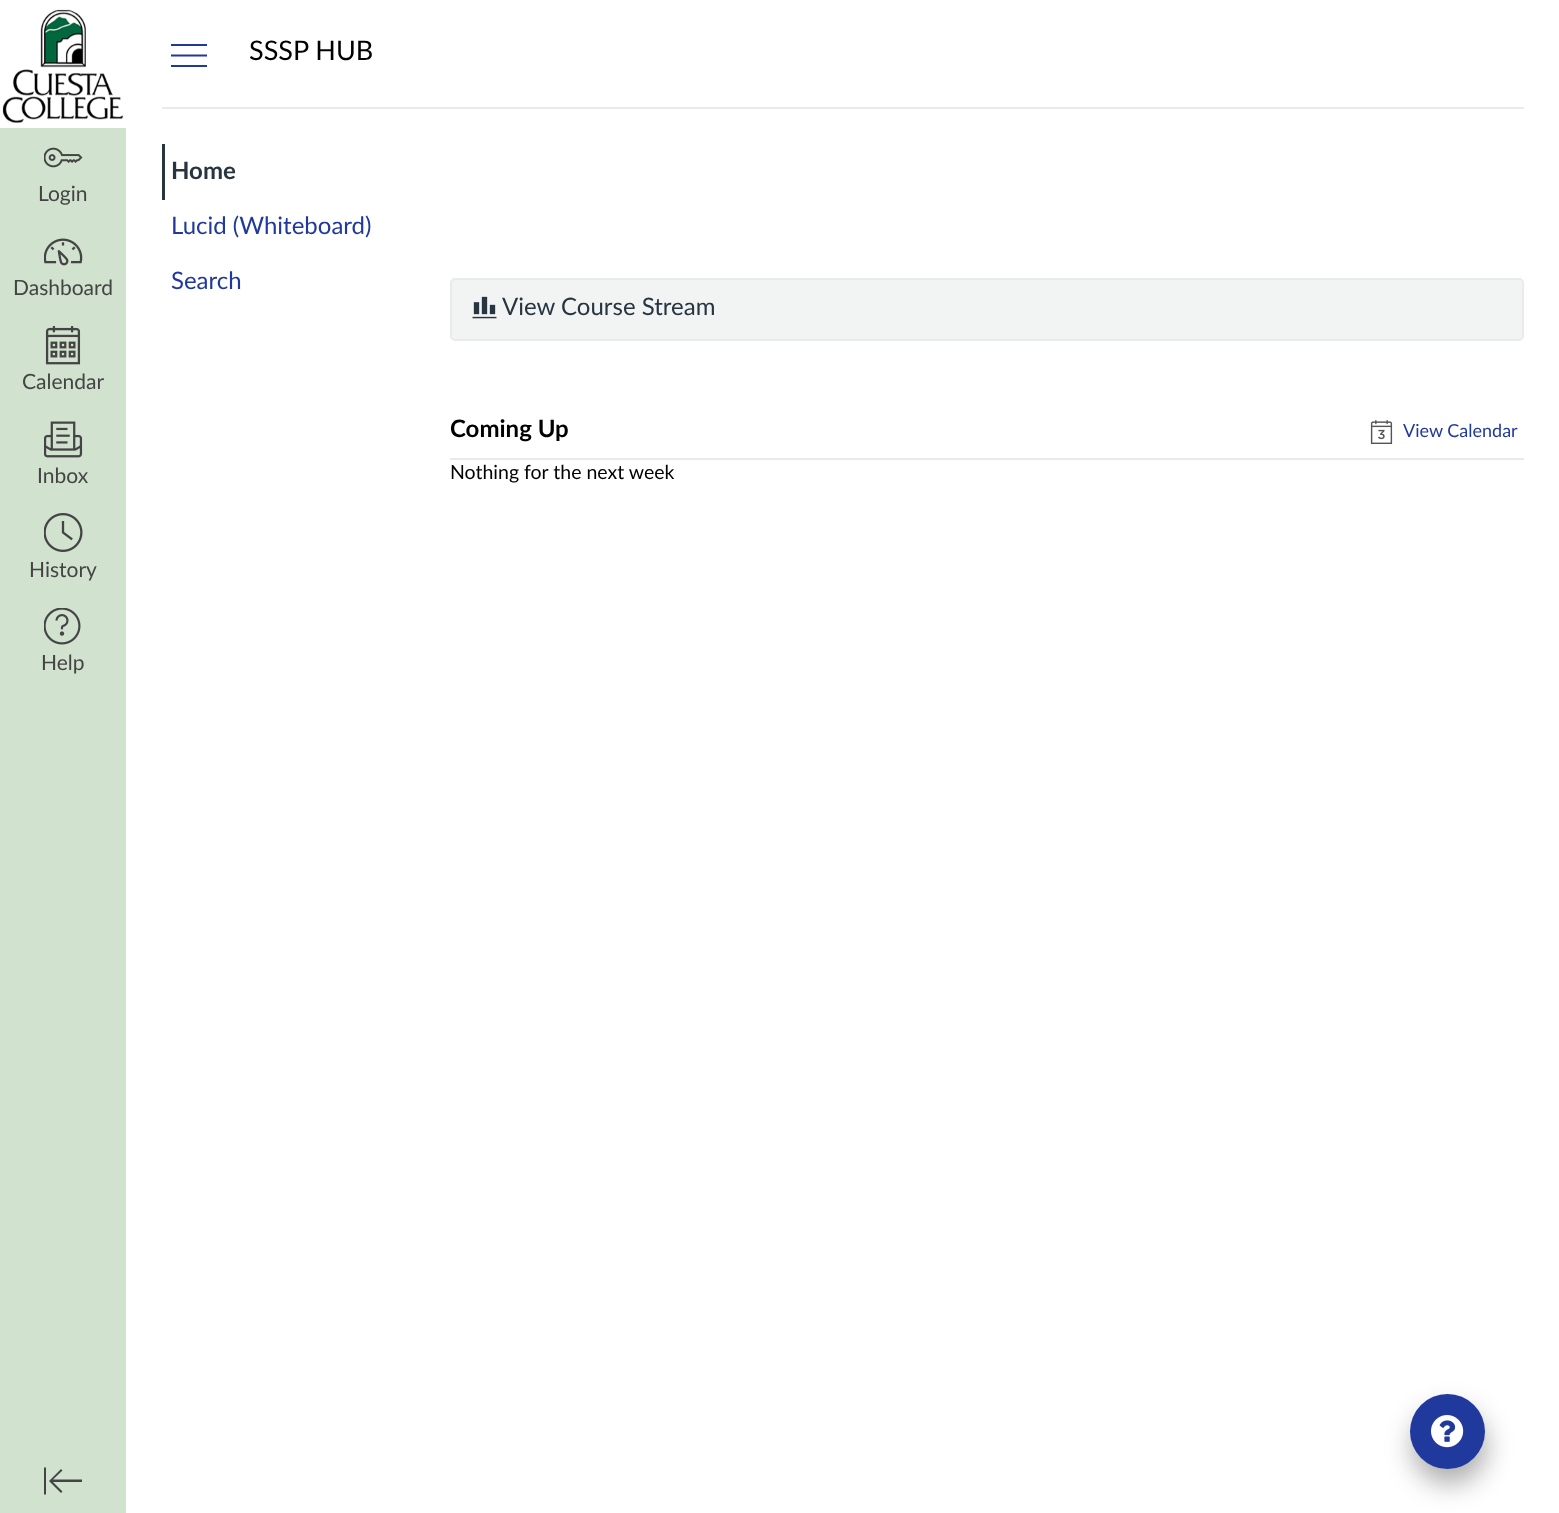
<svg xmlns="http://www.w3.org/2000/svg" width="1559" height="1513">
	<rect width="100%" height="100%" fill="#FFFFFF" />
	<rect x="0" y="128" width="126" height="1385" fill="#D1E2CF" />
	<image x="2" y="9" width="122" height="114" href="assets/img1.png" />
	<image x="44" y="147" width="39" height="21" href="assets/img2.png" />
	<text x="38" y="201" font-family="Lato" font-size="21" fill="#444444">Login</text>
	<image x="44" y="238" width="39" height="28" href="assets/img3.png" />
	<text x="13" y="295" font-family="Lato" font-size="21" fill="#444444">Dashboard</text>
	<image x="45" y="326" width="36" height="39" href="assets/img4.png" />
	<text x="22" y="389" font-family="Lato" font-size="21" fill="#444444">Calendar</text>
	<image x="44" y="421" width="39" height="37" href="assets/img5.png" />
	<text x="37" y="483" font-family="Lato" font-size="21" fill="#444444">Inbox</text>
	<image x="44" y="513" width="39" height="39" href="assets/img6.png" />
	<text x="29" y="577" font-family="Lato" font-size="21" fill="#444444">History</text>
	<image x="44" y="608" width="37" height="37" href="assets/img7.png" />
	<text x="41" y="670" font-family="Lato" font-size="21" fill="#444444">Help</text>
	<path d="M44 1494.5V1467.5H46V1494.5ZM49 1481L61 1469L62.5 1470.5L53 1479.5H82V1482H53L62.5 1491.5L61 1493Z" fill="#444444" />
	<rect x="162" y="107" width="1362" height="2" fill="#E8EAEC" />
	<path d="M207 65V67H171V65ZM207 54.5V56.5H171V54.5ZM207 44V46H171V44Z" fill="#20399D" />
	<text x="249" y="60" font-family="Lato" font-size="27" fill="#000000">SSSP HUB</text>
	<rect x="162" y="144" width="3" height="56" fill="#273540" />
	<text x="171" y="179" font-family="Lato" font-size="24" font-weight="700" fill="#273540">Home</text>
	<g font-family="Lato" font-size="24" fill="#20399D">
		<text x="171" y="234">Lucid (Whiteboard)</text>
		<text x="171" y="289">Search</text>
	</g>
	<rect x="451" y="279" width="1072" height="61" rx="4" fill="#F2F4F4" stroke="#E8EAEC" stroke-width="2" />
	<image x="472" y="296" width="25" height="23" href="assets/img8.png" />
	<text x="502" y="315" font-family="Lato" font-size="24" fill="#273540">View Course Stream</text>
	<rect x="450" y="458" width="1074" height="2" fill="#E8EAEC" />
	<text x="450" y="437" font-family="Lato" font-size="24" font-weight="700" fill="#000000">Coming Up</text>
	<image x="1370" y="420" width="23" height="24" href="assets/img9.png" />
	<text x="1403" y="437" font-family="Lato" font-size="18" fill="#20399D">View Calendar</text>
	<text x="450" y="479" font-family="Lato" font-size="19.5" fill="#000000">Nothing for the next week</text>
	<rect x="1412" y="1409" width="75" height="75" rx="37.5" fill="#000000" fill-opacity="0.32" filter="blur(13.5px)" />
	<circle cx="1447.5" cy="1431.5" r="37.5" fill="#20399D" />
	<image x="1431" y="1415" width="33" height="33" href="assets/img10.png" />
</svg>
